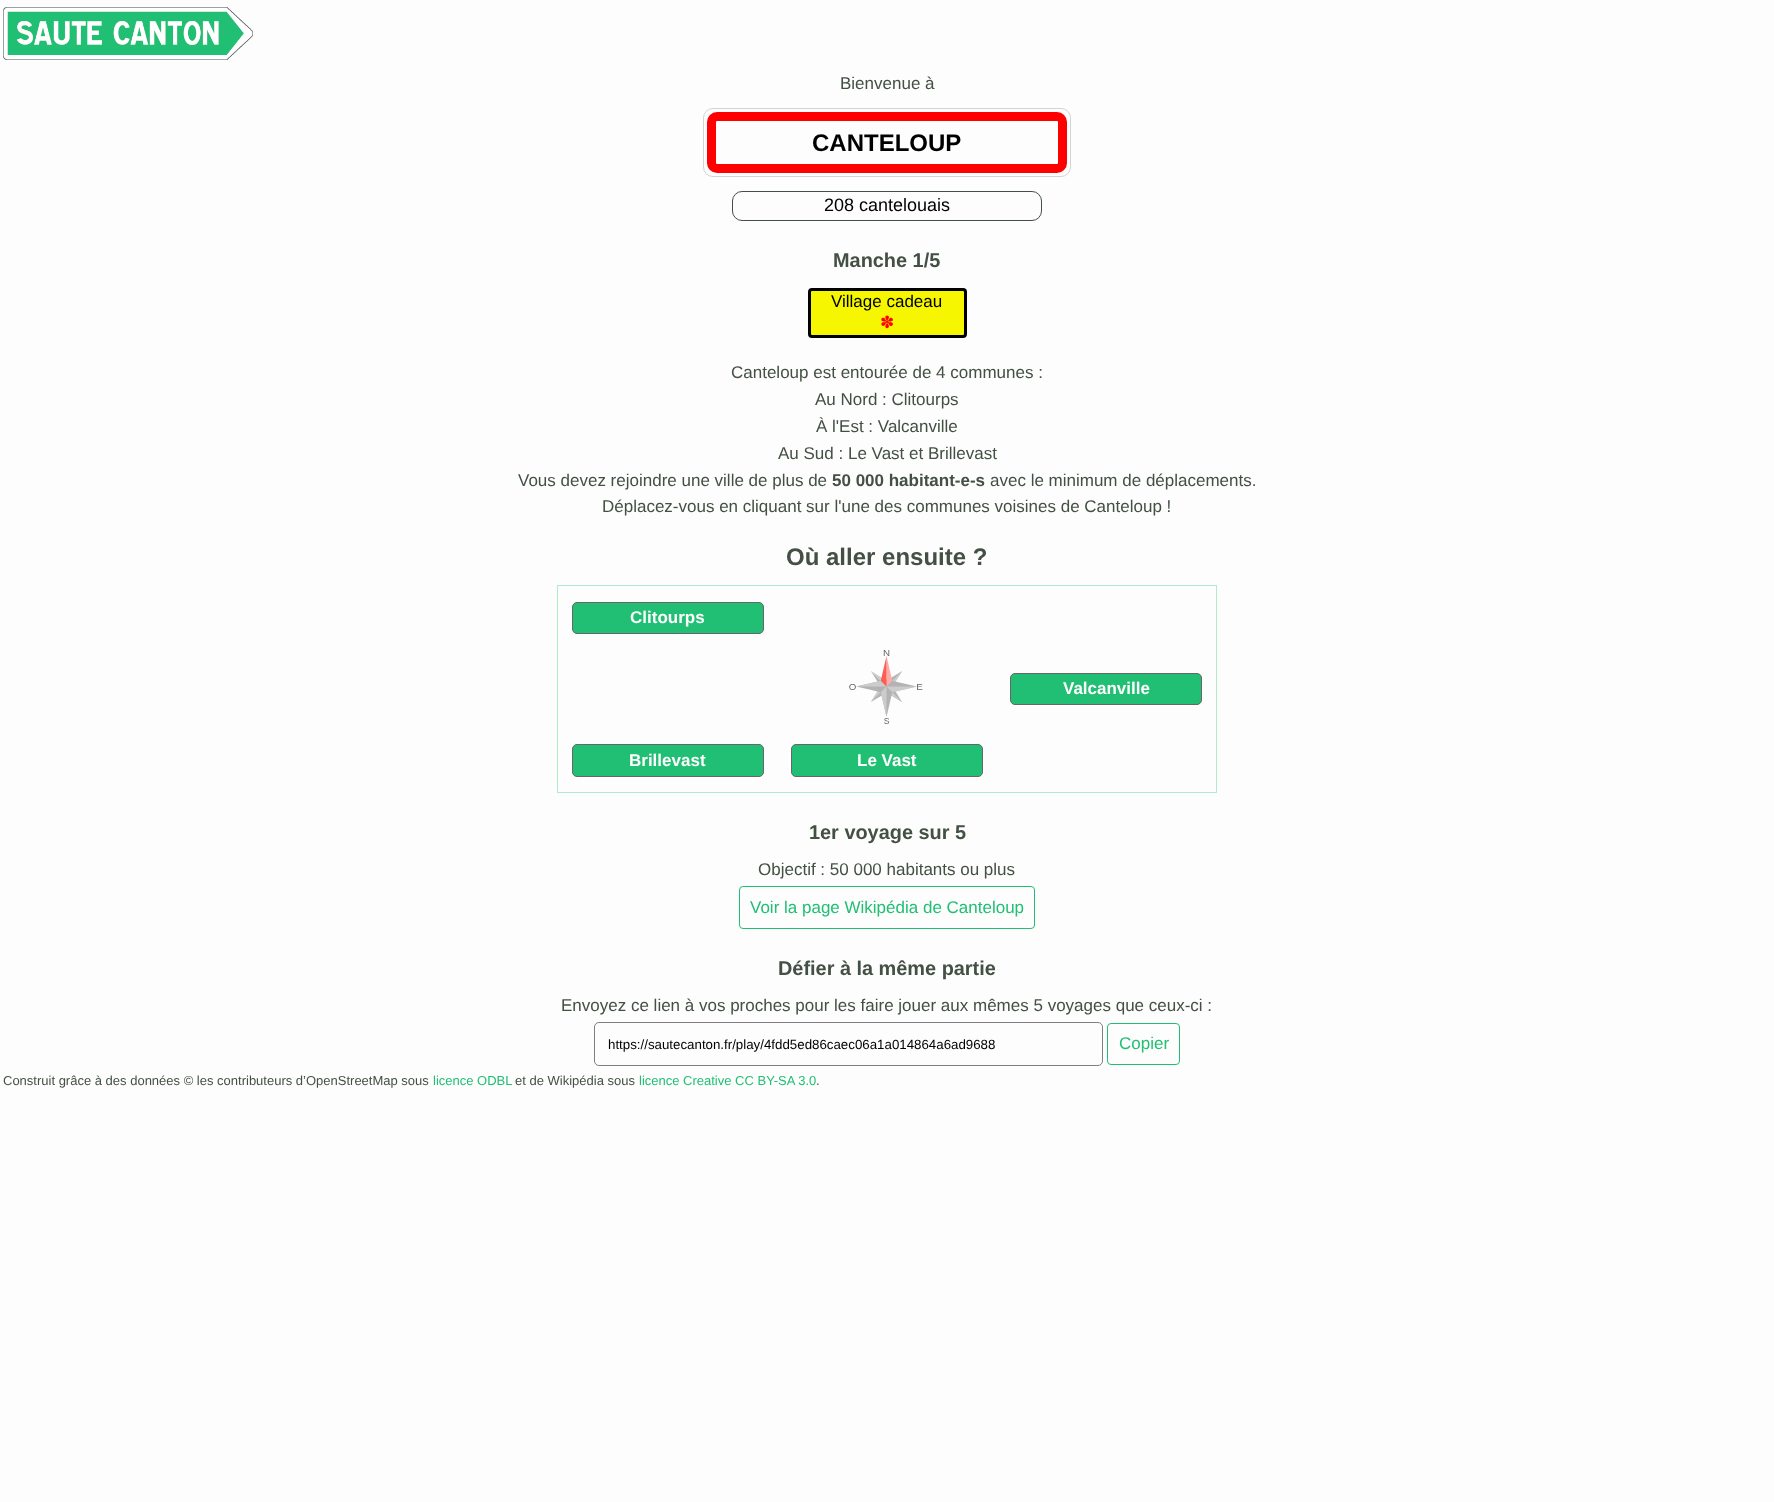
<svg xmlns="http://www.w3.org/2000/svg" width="1774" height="1502">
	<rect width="100%" height="100%" fill="#FDFDFD" />
	<image x="3" y="7" width="250" height="53" href="assets/img1.png" />
	<text x="840" y="89" font-family="Liberation Sans" font-size="17" fill="#445044">Bienvenue à</text>
	<rect x="703.5" y="108.5" width="367" height="68" rx="9.5" fill="none" stroke="#D3D3D3" />
	<rect x="711.5" y="116.5" width="351" height="52" rx="5.5" fill="none" stroke="#FF0000" stroke-width="9" />
	<text x="812" y="151" font-family="Liberation Sans" font-size="24" font-weight="700" fill="#000000">CANTELOUP</text>
	<rect x="732.5" y="191.5" width="309" height="29" rx="9.5" fill="none" stroke="#445044" />
	<text x="824" y="211" font-family="Liberation Sans" font-size="18" fill="#000000">208 cantelouais</text>
	<text x="833" y="267" font-family="Liberation Sans" font-size="19.9" font-weight="700" fill="#445044">Manche 1/5</text>
	<rect x="809.5" y="289.5" width="156" height="47" rx="2.5" fill="#F6F600" stroke="#000000" stroke-width="3" />
	<text x="831" y="307" font-family="Liberation Sans" font-size="17" fill="#000000">Village cadeau</text>
	<text x="880" y="328" font-family="DejaVu Sans" font-size="17" fill="#FF0000">✽</text>
	<g font-family="Liberation Sans" font-size="17" fill="#445044">
		<text x="731" y="378">Canteloup est entourée de 4 communes :</text>
		<text x="815" y="405">Au Nord : Clitourps</text>
		<text x="816" y="432">À l'Est : Valcanville</text>
		<text x="778" y="459">Au Sud : Le Vast et Brillevast</text>
		<text x="518" y="486">Vous devez rejoindre une ville de plus de</text>
	</g>
	<text x="832" y="486" font-family="Liberation Sans" font-size="17" font-weight="700" fill="#445044">50 000 habitant-e-s</text>
	<g font-family="Liberation Sans" font-size="17" fill="#445044">
		<text x="990" y="486">avec le minimum de déplacements.</text>
		<text x="602" y="512">Déplacez-vous en cliquant sur l'une des communes voisines de Canteloup !</text>
	</g>
	<text x="786" y="565" font-family="Liberation Sans" font-size="24" font-weight="700" fill="#445044">Où aller ensuite ?</text>
	<rect x="557" y="585" width="660" height="1" fill="#B0EACD" />
	<rect x="1216" y="585" width="1" height="208" fill="#B0EACD" />
	<rect x="557" y="792" width="660" height="1" fill="#B0EACD" />
	<rect x="557" y="585" width="1" height="208" fill="#B0EACD" />
	<rect x="572.5" y="602.5" width="191" height="31" rx="4.5" fill="#21BF73" stroke="#666666" />
	<text x="630" y="623" font-family="Liberation Sans" font-size="17" font-weight="700" fill="#FDFDFD">Clitourps</text>
	<image x="849" y="650" width="74" height="74" href="assets/img2.png" />
	<rect x="1010.5" y="673.5" width="191" height="31" rx="4.5" fill="#21BF73" stroke="#666666" />
	<text x="1063" y="694" font-family="Liberation Sans" font-size="17" font-weight="700" fill="#FDFDFD">Valcanville</text>
	<rect x="572.5" y="744.5" width="191" height="32" rx="4.5" fill="#21BF73" stroke="#666666" />
	<text x="629" y="766" font-family="Liberation Sans" font-size="17" font-weight="700" fill="#FDFDFD">Brillevast</text>
	<rect x="791.5" y="744.5" width="191" height="32" rx="4.5" fill="#21BF73" stroke="#666666" />
	<text x="857" y="766" font-family="Liberation Sans" font-size="17" font-weight="700" fill="#FDFDFD">Le Vast</text>
	<text x="809" y="839" font-family="Liberation Sans" font-size="19.9" font-weight="700" fill="#445044">1er voyage sur 5</text>
	<text x="758" y="875" font-family="Liberation Sans" font-size="17" fill="#445044">Objectif : 50 000 habitants ou plus</text>
	<rect x="739.5" y="886.5" width="295" height="42" rx="3.5" fill="none" stroke="#21BF73" />
	<text x="750" y="913" font-family="Liberation Sans" font-size="17" fill="#21BF73">Voir la page Wikipédia de Canteloup</text>
	<text x="778" y="975" font-family="Liberation Sans" font-size="19.9" font-weight="700" fill="#445044">Défier à la même partie</text>
	<text x="561" y="1011" font-family="Liberation Sans" font-size="17" fill="#445044">Envoyez ce lien à vos proches pour les faire jouer aux mêmes 5 voyages que ceux-ci :</text>
	<rect x="594.5" y="1022.5" width="508" height="43" rx="4.5" fill="none" stroke="#808080" />
	<text x="608" y="1049" font-family="Liberation Sans" font-size="13.3" fill="#000000">https://sautecanton.fr/play/4fdd5ed86caec06a1a014864a6ad9688</text>
	<rect x="1107.5" y="1023.5" width="72" height="41" rx="3.5" fill="none" stroke="#21BF73" />
	<text x="1119" y="1049" font-family="Liberation Sans" font-size="17" fill="#21BF73">Copier</text>
	<text x="3" y="1085" font-family="Liberation Sans" font-size="13" fill="#445044">Construit grâce à des données © les contributeurs d’OpenStreetMap sous</text>
	<text x="433" y="1085" font-family="Liberation Sans" font-size="13" fill="#21BF73">licence ODBL</text>
	<text x="515" y="1085" font-family="Liberation Sans" font-size="13" fill="#445044">et de Wikipédia sous</text>
	<text x="639" y="1085" font-family="Liberation Sans" font-size="13" fill="#21BF73">licence Creative CC BY-SA 3.0</text>
	<text x="816" y="1085" font-family="Liberation Sans" font-size="13" fill="#445044">.</text>
</svg>
